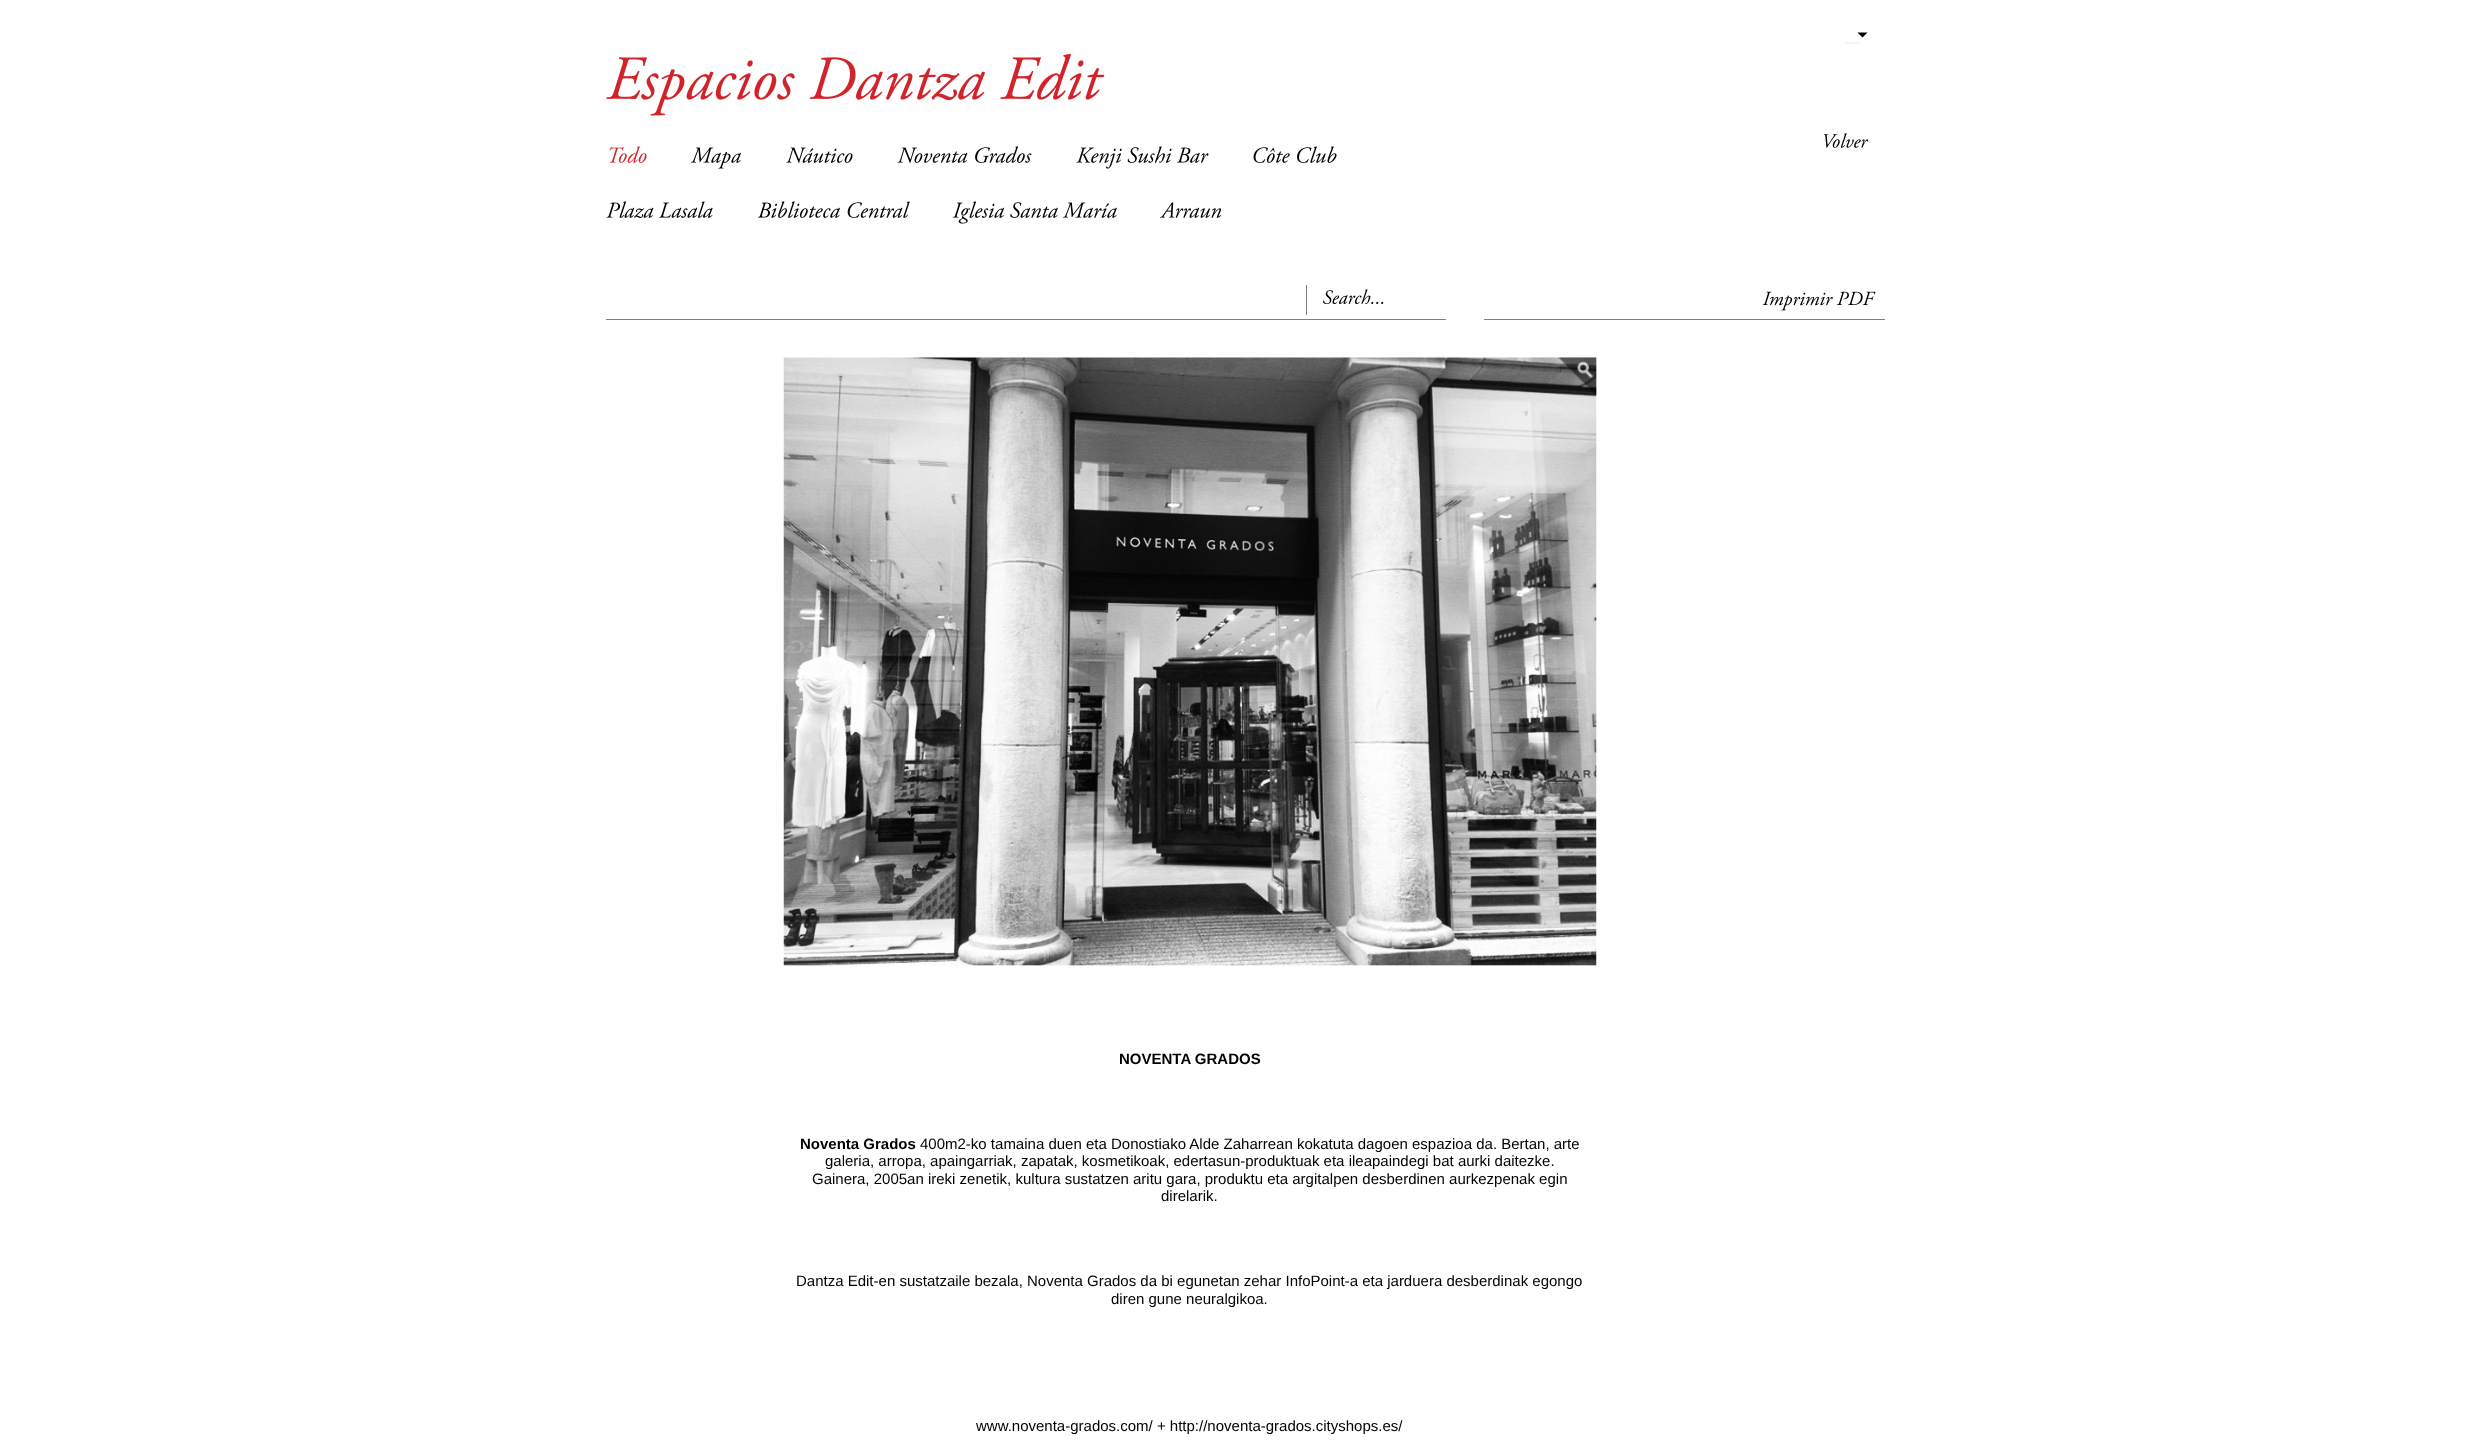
<svg xmlns="http://www.w3.org/2000/svg" width="2491" height="1454">
	<rect width="100%" height="100%" fill="#FFFFFF" />
	<image x="1845" y="42" width="15" height="2" href="assets/img1.png" />
	<path d="M1857.5 32.5H1867.5L1862.5 37.5Z" fill="#000000" />
	<image x="1823" y="133" width="45" height="15" href="assets/img2.png" />
	<image x="606" y="54" width="499" height="62" href="assets/img3.png" />
	<image x="609" y="146" width="38" height="17" href="assets/img4.png" />
	<image x="690" y="147" width="51" height="22" href="assets/img5.png" />
	<image x="786" y="147" width="67" height="16" href="assets/img6.png" />
	<image x="897" y="146" width="135" height="17" href="assets/img7.png" />
	<image x="1076" y="146" width="133" height="23" href="assets/img8.png" />
	<image x="1253" y="146" width="84" height="17" href="assets/img9.png" />
	<image x="606" y="201" width="107" height="17" href="assets/img10.png" />
	<image x="758" y="201" width="152" height="17" href="assets/img11.png" />
	<image x="952" y="201" width="165" height="23" href="assets/img12.png" />
	<image x="1160" y="202" width="62" height="16" href="assets/img13.png" />
	<rect x="606" y="319" width="840" height="1" fill="#808080" />
	<rect x="1306" y="285" width="1" height="30" fill="#808080" />
	<image x="1323" y="289" width="61" height="16" href="assets/img14.png" />
	<rect x="1484" y="319" width="401" height="1" fill="#808080" />
	<image x="1762" y="291" width="114" height="20" href="assets/img15.png" />
	<image x="783" y="357" width="814" height="609" href="assets/img16.png" />
	<image x="1558" y="357" width="39" height="38" href="assets/img17.png" />
	<g font-family="Liberation Sans" font-size="15" font-weight="700" fill="#000000">
		<text x="1119" y="1064">NOVENTA GRADOS</text>
		<text x="800" y="1149">Noventa Grados</text>
	</g>
	<g font-family="Liberation Sans" font-size="15" fill="#000000">
		<text x="920" y="1149">400m2-ko tamaina duen eta Donostiako Alde Zaharrean kokatuta dagoen espazioa da. Bertan, arte</text>
		<text x="825" y="1166">galeria, arropa, apaingarriak, zapatak, kosmetikoak, edertasun-produktuak eta ileapaindegi bat aurki daitezke.</text>
		<text x="812" y="1184">Gainera, 2005an ireki zenetik, kultura sustatzen aritu gara, produktu eta argitalpen desberdinen aurkezpenak egin</text>
		<text x="1161" y="1201">direlarik.</text>
		<text x="796" y="1286">Dantza Edit-en sustatzaile bezala, Noventa Grados da bi egunetan zehar InfoPoint-a eta jarduera desberdinak egongo</text>
		<text x="1111" y="1304">diren gune neuralgikoa.</text>
		<text x="976" y="1431">www.noventa-grados.com/ + http://noventa-grados.cityshops.es/</text>
	</g>
</svg>
